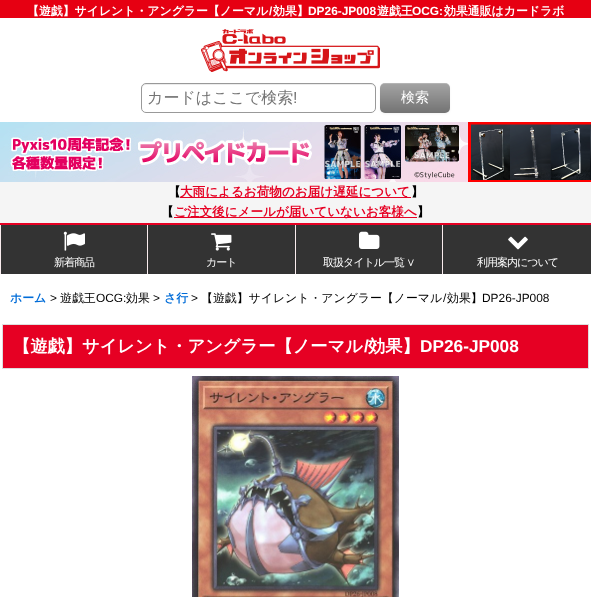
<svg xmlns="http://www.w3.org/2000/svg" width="591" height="597">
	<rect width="100%" height="100%" fill="#FFFFFF" />
	<rect x="0" y="223" width="591" height="2" fill="#E60023" />
	<rect x="0" y="0" width="591" height="18" fill="#E60012" />
	<text x="27" y="15" font-family="WenQuanYi Zen Hei" font-size="11.9" font-weight="700" fill="#FFFFFF">【遊戯】サイレント・アングラー【ノーマル</text>
	<text x="269" y="15" font-family="Liberation Sans" font-size="11.9" font-weight="700" fill="#FFFFFF">/</text>
	<text x="273" y="15" font-family="WenQuanYi Zen Hei" font-size="11.9" font-weight="700" fill="#FFFFFF">効果】</text>
	<text x="308" y="15" font-family="Liberation Sans" font-size="11.9" font-weight="700" fill="#FFFFFF">DP26-JP008</text>
	<text x="377" y="15" font-family="WenQuanYi Zen Hei" font-size="11.9" font-weight="700" fill="#FFFFFF">遊戯王</text>
	<text x="412" y="15" font-family="Liberation Sans" font-size="11.9" font-weight="700" fill="#FFFFFF">OCG:</text>
	<text x="444" y="15" font-family="WenQuanYi Zen Hei" font-size="11.9" font-weight="700" fill="#FFFFFF">効果通販はカードラボ</text>
	<image x="201" y="29" width="179" height="43" href="assets/img1.png" />
	<path d="M146 85H371C373 85 375 87 375 89C375 86 374 84 371 84H146C143 84 142 86 142 89C142 87 144 85 146 85Z" fill="#ECECEC" />
	<rect x="141.5" y="83.5" width="234" height="29" rx="4.5" fill="none" stroke="#999999" />
	<text x="147" y="103" font-family="WenQuanYi Zen Hei" font-size="16" font-weight="500" fill="#757575">カードはここで検索</text>
	<text x="293" y="103" font-family="Liberation Sans" font-size="16" fill="#757575">!</text>
	<rect x="380" y="84" width="70" height="30" rx="5" fill="#000000" fill-opacity="0.05" filter="blur(1px)" />
	<image x="380" y="83" width="70" height="30" href="assets/img2.png" />
	<path d="M385 84H445C448 84 450 86 450 89C450 81 441 83 435 83H395C389 83 380 81 380 89C380 86 382 84 385 84Z" fill="#FFFFFF" fill-opacity="0.2" />
	<text x="401" y="102" font-family="WenQuanYi Zen Hei" font-size="14" font-weight="500" fill="#FFFFFF">検索</text>
	<image x="0" y="122" width="468" height="60" href="assets/img3.png" />
	<image x="468" y="122" width="123" height="60" href="assets/img4.png" />
	<rect x="0" y="182" width="591" height="41" fill="#F5F5F5" />
	<text x="168" y="196" font-family="WenQuanYi Zen Hei" font-size="12.6" font-weight="700" fill="#000000">【</text>
	<rect x="180" y="197" width="231" height="1" fill="#E60023" />
	<text x="180" y="196" font-family="WenQuanYi Zen Hei" font-size="12.6" font-weight="700" fill="#E60023">大雨によるお荷物のお届け遅延について</text>
	<g font-family="WenQuanYi Zen Hei" font-size="12.6" font-weight="700" fill="#000000">
		<text x="411" y="196">】</text>
		<text x="161" y="216">【</text>
	</g>
	<rect x="174" y="217" width="243" height="1" fill="#E60023" />
	<text x="174" y="216" font-family="WenQuanYi Zen Hei" font-size="12.6" font-weight="700" fill="#E60023">ご注文後にメールが届いていないお客様へ</text>
	<text x="417" y="216" font-family="WenQuanYi Zen Hei" font-size="12.6" font-weight="700" fill="#000000">】</text>
	<rect x="1" y="225" width="590" height="49" fill="#333333" />
	<rect x="147" y="225" width="1" height="49" fill="#F9ECEE" />
	<rect x="0" y="225" width="1" height="49" fill="#F9ECEE" />
	<image x="63" y="231" width="22" height="20" href="assets/img5.png" />
	<text x="54" y="266" font-family="WenQuanYi Zen Hei" font-size="11" font-weight="500" letter-spacing="-1" fill="#FFFFFF">新着商品</text>
	<rect x="295" y="225" width="1" height="49" fill="#F9ECEE" />
	<image x="211" y="233" width="21" height="18" href="assets/img6.png" />
	<text x="206" y="266" font-family="WenQuanYi Zen Hei" font-size="11" font-weight="500" letter-spacing="-1" fill="#FFFFFF">カート</text>
	<rect x="442" y="225" width="1" height="49" fill="#F9ECEE" />
	<image x="359" y="231" width="21" height="18" href="assets/img7.png" />
	<text x="323" y="266" font-family="WenQuanYi Zen Hei" font-size="11" font-weight="500" letter-spacing="-1" fill="#FFFFFF">取扱タイトル一覧 ∨</text>
	<image x="508" y="236" width="20" height="14" href="assets/img8.png" />
	<text x="477" y="266" font-family="WenQuanYi Zen Hei" font-size="11" font-weight="500" letter-spacing="-1" fill="#FFFFFF">利用案内について</text>
	<text x="10" y="302" font-family="WenQuanYi Zen Hei" font-size="11.9" font-weight="700" fill="#006CD8">ホーム</text>
	<text x="50" y="302" font-family="Liberation Sans" font-size="11.9" fill="#000000">&gt;</text>
	<text x="60" y="302" font-family="WenQuanYi Zen Hei" font-size="11.9" font-weight="500" fill="#000000">遊戯王</text>
	<text x="96" y="302" font-family="Liberation Sans" font-size="11.9" fill="#000000">OCG:</text>
	<text x="126" y="302" font-family="WenQuanYi Zen Hei" font-size="11.9" font-weight="500" fill="#000000">効果</text>
	<text x="153" y="302" font-family="Liberation Sans" font-size="11.9" fill="#000000">&gt;</text>
	<text x="164" y="302" font-family="WenQuanYi Zen Hei" font-size="11.9" font-weight="700" fill="#006CD8">さ行</text>
	<text x="191" y="302" font-family="Liberation Sans" font-size="11.9" fill="#000000">&gt;</text>
	<text x="201" y="302" font-family="WenQuanYi Zen Hei" font-size="11.9" font-weight="500" fill="#000000">【遊戯】サイレント・アングラー【ノーマル</text>
	<text x="443" y="302" font-family="Liberation Sans" font-size="11.9" fill="#000000">/</text>
	<text x="447" y="302" font-family="WenQuanYi Zen Hei" font-size="11.9" font-weight="500" fill="#000000">効果】</text>
	<text x="482" y="302" font-family="Liberation Sans" font-size="11.9" fill="#000000">DP26-JP008</text>
	<rect x="2.5" y="324.5" width="586" height="44" fill="#E60023" stroke="#DEDEDE" />
	<text x="13" y="352" font-family="WenQuanYi Zen Hei" font-size="17.25" font-weight="700" fill="#FFFFFF">【遊戯】サイレント・アングラー【ノーマル</text>
	<text x="364" y="352" font-family="Liberation Sans" font-size="17.25" font-weight="700" fill="#FFFFFF">/</text>
	<text x="368" y="352" font-family="WenQuanYi Zen Hei" font-size="17.25" font-weight="700" fill="#FFFFFF">効果】</text>
	<text x="420" y="352" font-family="Liberation Sans" font-size="17.25" font-weight="700" fill="#FFFFFF">DP26-JP008</text>
	<image x="192" y="376" width="207" height="221" href="assets/img9.png" />
</svg>
